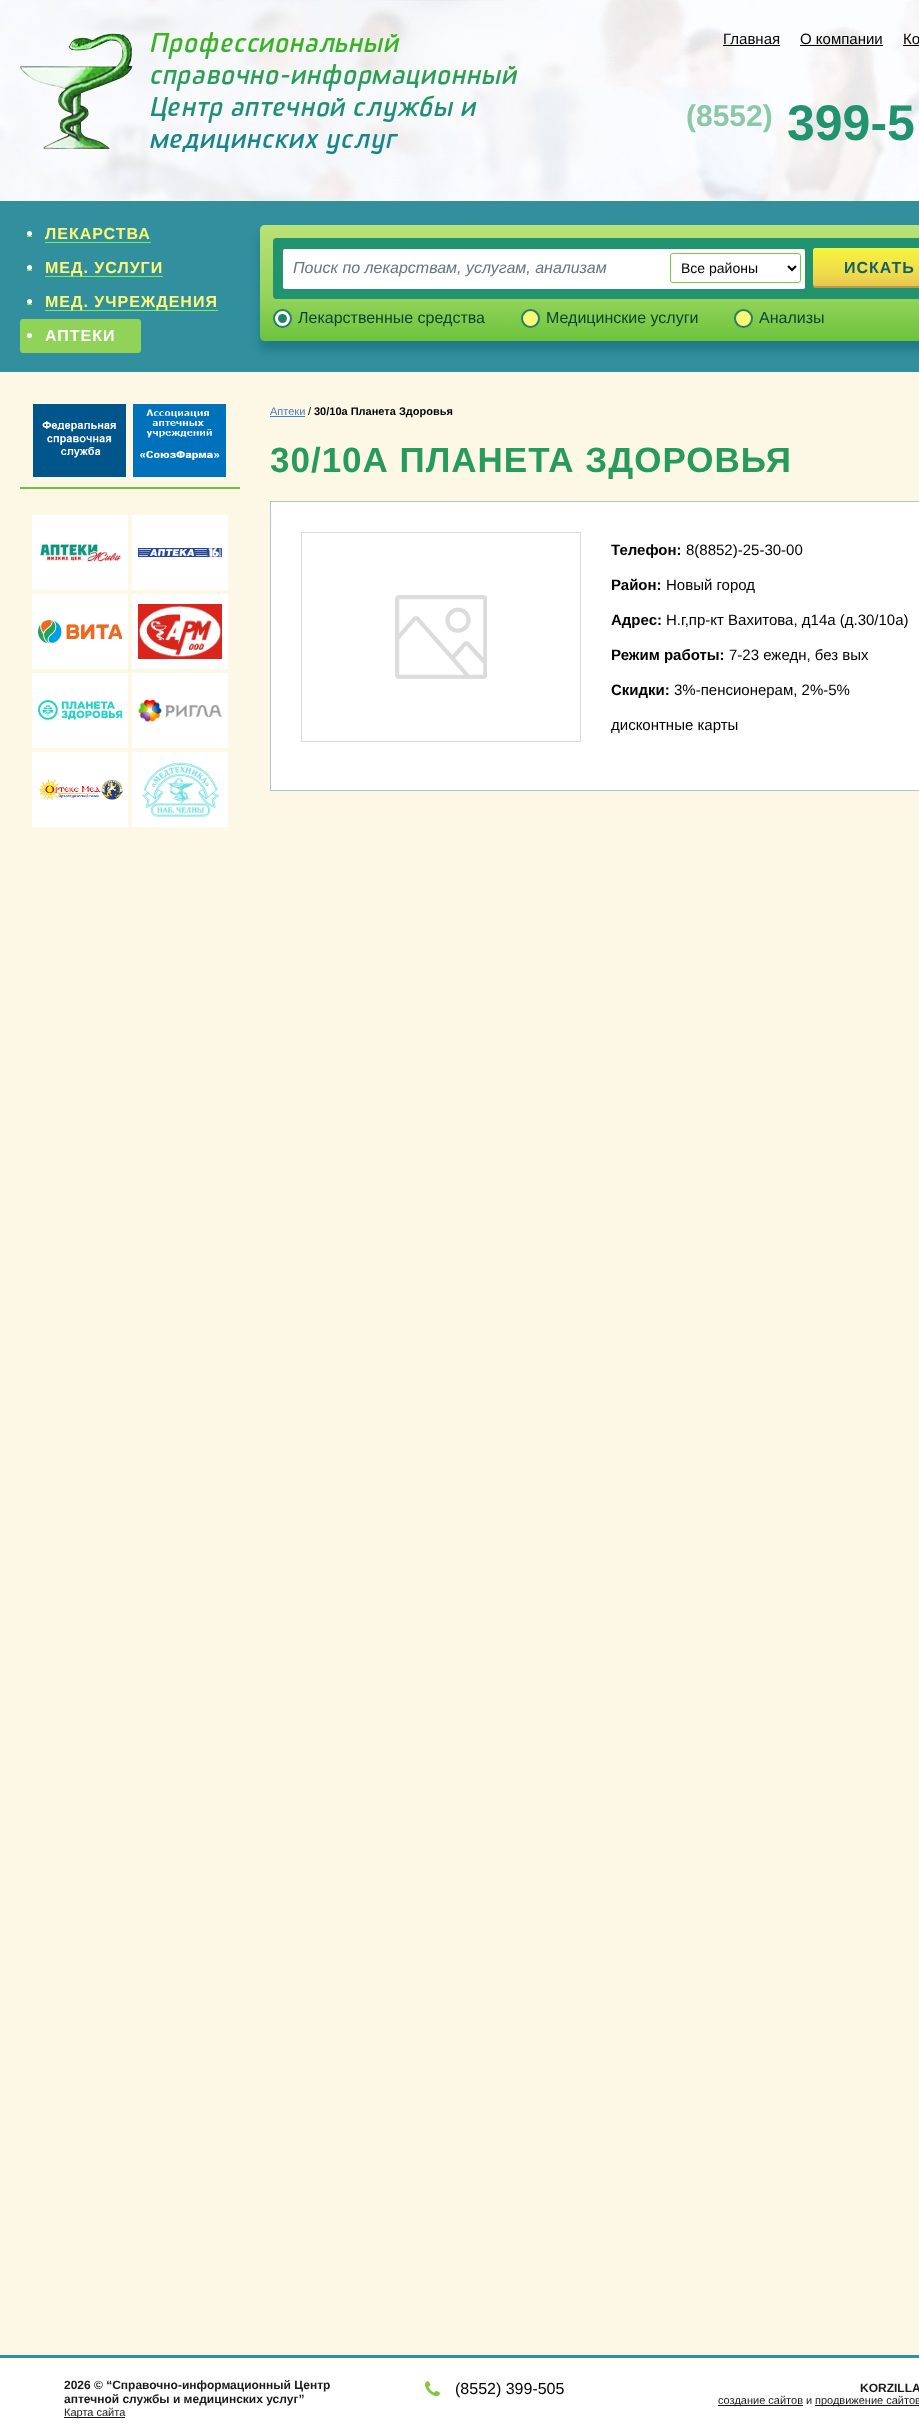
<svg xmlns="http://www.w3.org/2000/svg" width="919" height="2432">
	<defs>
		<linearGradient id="g1" gradientUnits="userSpaceOnUse" x1="615" y1="341" x2="615" y2="225"><stop offset="0" stop-color="#6CC33C" /><stop offset="0.37" stop-color="#94D35A" /><stop offset="1" stop-color="#BBE278" /></linearGradient>
		<linearGradient id="g2" gradientUnits="userSpaceOnUse" x1="878" y1="248" x2="878" y2="288"><stop offset="0" stop-color="#F7F43E" /><stop offset="0.63" stop-color="#EFDC4A" /><stop offset="1" stop-color="#E7C355" /></linearGradient>
	</defs>
	<rect width="100%" height="100%" fill="#FDF8E6" />
	<image x="0" y="0" width="919" height="372" href="assets/img1.png" />
	<text x="723" y="44" font-family="Liberation Sans" font-size="15" fill="#000000">Главная</text>
	<rect x="723" y="45" width="57" height="1" fill="#000000" />
	<text x="800" y="44" font-family="Liberation Sans" font-size="15" fill="#000000">О компании</text>
	<rect x="800" y="45" width="83" height="1" fill="#000000" />
	<text x="903" y="44" font-family="Liberation Sans" font-size="15" fill="#000000">Ко</text>
	<rect x="903" y="45" width="16" height="1" fill="#000000" />
	<rect x="20" y="487" width="220" height="2" fill="#6DC33D" />
	<image x="33" y="404" width="93" height="73" href="assets/img2.png" />
	<image x="133" y="404" width="93" height="73" href="assets/img3.png" />
	<rect x="32" y="515" width="96" height="75" fill="#FFFFFF" />
	<image x="38" y="541" width="84" height="21" href="assets/img4.png" />
	<rect x="132" y="515" width="96" height="75" fill="#FFFFFF" />
	<image x="138" y="548" width="84" height="9" href="assets/img5.png" />
	<rect x="32" y="594" width="96" height="75" fill="#FFFFFF" />
	<image x="38" y="620" width="84" height="23" href="assets/img6.png" />
	<rect x="132" y="594" width="96" height="75" fill="#FFFFFF" />
	<image x="138" y="604" width="84" height="55" href="assets/img7.png" />
	<rect x="32" y="673" width="96" height="75" fill="#FFFFFF" />
	<image x="38" y="700" width="84" height="20" href="assets/img8.png" />
	<rect x="132" y="673" width="96" height="75" fill="#FFFFFF" />
	<image x="138" y="699" width="84" height="23" href="assets/img9.png" />
	<rect x="32" y="752" width="96" height="75" fill="#FFFFFF" />
	<image x="38" y="779" width="85" height="21" href="assets/img10.png" />
	<rect x="132" y="752" width="96" height="75" fill="#FFFFFF" />
	<image x="142" y="762" width="78" height="55" href="assets/img11.png" />
	<rect x="27" y="236" width="5" height="1" fill="#7CED55" />
	<rect x="45" y="242" width="106" height="1" fill="#7CED55" />
	<circle cx="29.5" cy="233.5" r="2.5" fill="#FFFFFF" />
	<text x="45" y="239" font-family="Liberation Sans" font-size="16" font-weight="700" letter-spacing="1" fill="#FBF975">ЛЕКАРСТВА</text>
	<rect x="27" y="270" width="5" height="1" fill="#7CED55" />
	<rect x="45" y="276" width="118" height="1" fill="#7CED55" />
	<circle cx="29.5" cy="267.5" r="2.5" fill="#FFFFFF" />
	<text x="45" y="273" font-family="Liberation Sans" font-size="16" font-weight="700" letter-spacing="1" fill="#FBF975">МЕД. УСЛУГИ</text>
	<rect x="27" y="304" width="5" height="1" fill="#7CED55" />
	<rect x="45" y="310" width="173" height="1" fill="#7CED55" />
	<circle cx="29.5" cy="301.5" r="2.5" fill="#FFFFFF" />
	<text x="45" y="307" font-family="Liberation Sans" font-size="16" font-weight="700" letter-spacing="1" fill="#FBF975">МЕД. УЧРЕЖДЕНИЯ</text>
	<rect x="20" y="319" width="121" height="34" rx="3" fill="#91D258" />
	<circle cx="29.5" cy="335.5" r="2.5" fill="#FFFFFF" />
	<text x="45" y="341" font-family="Liberation Sans" font-size="16" font-weight="700" letter-spacing="1" fill="#FFFFFF">АПТЕКИ</text>
	<rect x="260" y="234" width="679" height="116" rx="5" fill="#0C5D6C" fill-opacity="0.45" filter="blur(5px)" />
	<path d="M265 225H919V341H265C262 341 260 339 260 336V230C260 227 262 225 265 225Z" fill="url(#g1)" />
	<path d="M276 238H919V299H276C274.5 299 273 297.5 273 296V241C273 239.5 274.5 238 276 238Z" fill="#21936F" />
	<rect x="283" y="249" width="522" height="40" rx="2" fill="#FFFFFF" />
	<text x="293" y="273" font-family="Liberation Sans" font-size="16" font-style="italic" fill="#657588">Поиск по лекарствам, услугам, анализам</text>
	<rect x="670.5" y="253.5" width="130" height="29" rx="2.5" fill="none" stroke="#7BC947" />
	<path d="M788 266L792 270L796 266" fill="none" stroke="#000000" stroke-width="2" />
	<text x="681" y="273" font-family="Liberation Sans" font-size="14" fill="#000000">Все районы</text>
	<path d="M815 248H919V288H815C814 288 813 287 813 286V250C813 249 814 248 815 248Z" fill="url(#g2)" />
	<path d="M813 284V286C813 287 814 288 815 288H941C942 288 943 287 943 286V284C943 285 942 286 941 286H815C814 286 813 285 813 284Z" fill="#000000" fill-opacity="0.2" />
	<text x="844" y="273" font-family="Liberation Sans" font-size="16" font-weight="700" letter-spacing="1" fill="#165E68">ИСКАТЬ</text>
	<circle cx="282.5" cy="318.5" r="8.5" fill="#FFFFFF" stroke="#238268" stroke-width="2" />
	<circle cx="282.5" cy="318.5" r="4.5" fill="#238268" />
	<text x="298" y="323" font-family="Liberation Sans" font-size="16" fill="#094535">Лекарственные средства</text>
	<circle cx="530.5" cy="318.5" r="8.5" fill="#FBF975" stroke="#238268" stroke-width="2" />
	<text x="546" y="323" font-family="Liberation Sans" font-size="16" fill="#094535">Медицинские услуги</text>
	<circle cx="743.5" cy="318.5" r="8.5" fill="#FBF975" stroke="#238268" stroke-width="2" />
	<text x="759" y="323" font-family="Liberation Sans" font-size="16" fill="#094535">Анализы</text>
	<text x="270" y="415" font-family="Liberation Sans" font-size="11" fill="#4582BB">Аптеки</text>
	<rect x="270" y="416" width="35" height="1" fill="#4582BB" />
	<text x="308" y="415" font-family="Liberation Sans" font-size="11" fill="#000000">/</text>
	<text x="314" y="415" font-family="Liberation Sans" font-size="11" font-weight="700" fill="#000000">30/10а Планета Здоровья</text>
	<text x="270" y="472" font-family="Liberation Sans" font-size="35" font-weight="700" letter-spacing="1" fill="#279B5C">30/10А ПЛАНЕТА ЗДОРОВЬЯ</text>
	<rect x="270.5" y="501.5" width="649" height="289" fill="#FFFFFF" stroke="#AFC5C9" />
	<image x="301" y="532" width="280" height="210" href="assets/img12.png" />
	<text x="611" y="555" font-family="Liberation Sans" font-size="15" font-weight="700" fill="#000000">Телефон:</text>
	<text x="686" y="555" font-family="Liberation Sans" font-size="15" fill="#000000">8(8852)-25-30-00</text>
	<text x="611" y="590" font-family="Liberation Sans" font-size="15" font-weight="700" fill="#000000">Район:</text>
	<text x="666" y="590" font-family="Liberation Sans" font-size="15" fill="#000000">Новый город</text>
	<text x="611" y="625" font-family="Liberation Sans" font-size="15" font-weight="700" fill="#000000">Адрес:</text>
	<text x="666" y="625" font-family="Liberation Sans" font-size="15" fill="#000000">Н.г,пр-кт Вахитова, д14а (д.30/10а)</text>
	<text x="611" y="660" font-family="Liberation Sans" font-size="15" font-weight="700" fill="#000000">Режим работы:</text>
	<text x="729" y="660" font-family="Liberation Sans" font-size="15" fill="#000000">7-23 ежедн, без вых</text>
	<text x="611" y="695" font-family="Liberation Sans" font-size="15" font-weight="700" fill="#000000">Скидки:</text>
	<g font-family="Liberation Sans" font-size="15" fill="#000000">
		<text x="674" y="695">3%-пенсионерам, 2%-5%</text>
		<text x="611" y="730">дисконтные карты</text>
	</g>
	<image x="20" y="32" width="497" height="122" href="assets/img13.png" />
	<text x="686" y="126" font-family="Liberation Sans" font-size="30" font-weight="700" fill="#8CC8A5">(8552)</text>
	<text x="787" y="140" font-family="Liberation Sans" font-size="50" font-weight="700" fill="#21936F">399-5</text>
	<rect x="0" y="2358" width="919" height="74" fill="#FFFFFF" />
	<rect x="0" y="2355" width="919" height="3" fill="#328F9E" />
	<g font-family="Liberation Sans" font-size="12" font-weight="700" fill="#1A1A1A">
		<text x="64" y="2389">2026 © “Справочно-информационный Центр</text>
		<text x="64" y="2403">аптечной службы и медицинских услуг”</text>
	</g>
	<rect x="64" y="2417" width="61" height="1" fill="#1A1A1A" />
	<text x="64" y="2416" font-family="Liberation Sans" font-size="11" fill="#1A1A1A">Карта сайта</text>
	<image x="425" y="2381" width="15" height="16" href="assets/img14.png" />
	<text x="455" y="2394" font-family="Liberation Sans" font-size="16" fill="#000000">(8552) 399-505</text>
	<text x="860" y="2392" font-family="Liberation Sans" font-size="12" font-weight="700" fill="#1A1A1A">KORZILLA</text>
	<rect x="718" y="2405" width="85" height="1" fill="#1A1A1A" />
	<text x="718" y="2404" font-family="Liberation Sans" font-size="11" fill="#1A1A1A">создание сайтов и</text>
	<rect x="815" y="2405" width="104" height="1" fill="#1A1A1A" />
	<text x="815" y="2404" font-family="Liberation Sans" font-size="11" fill="#1A1A1A">продвижение сайтов</text>
</svg>
